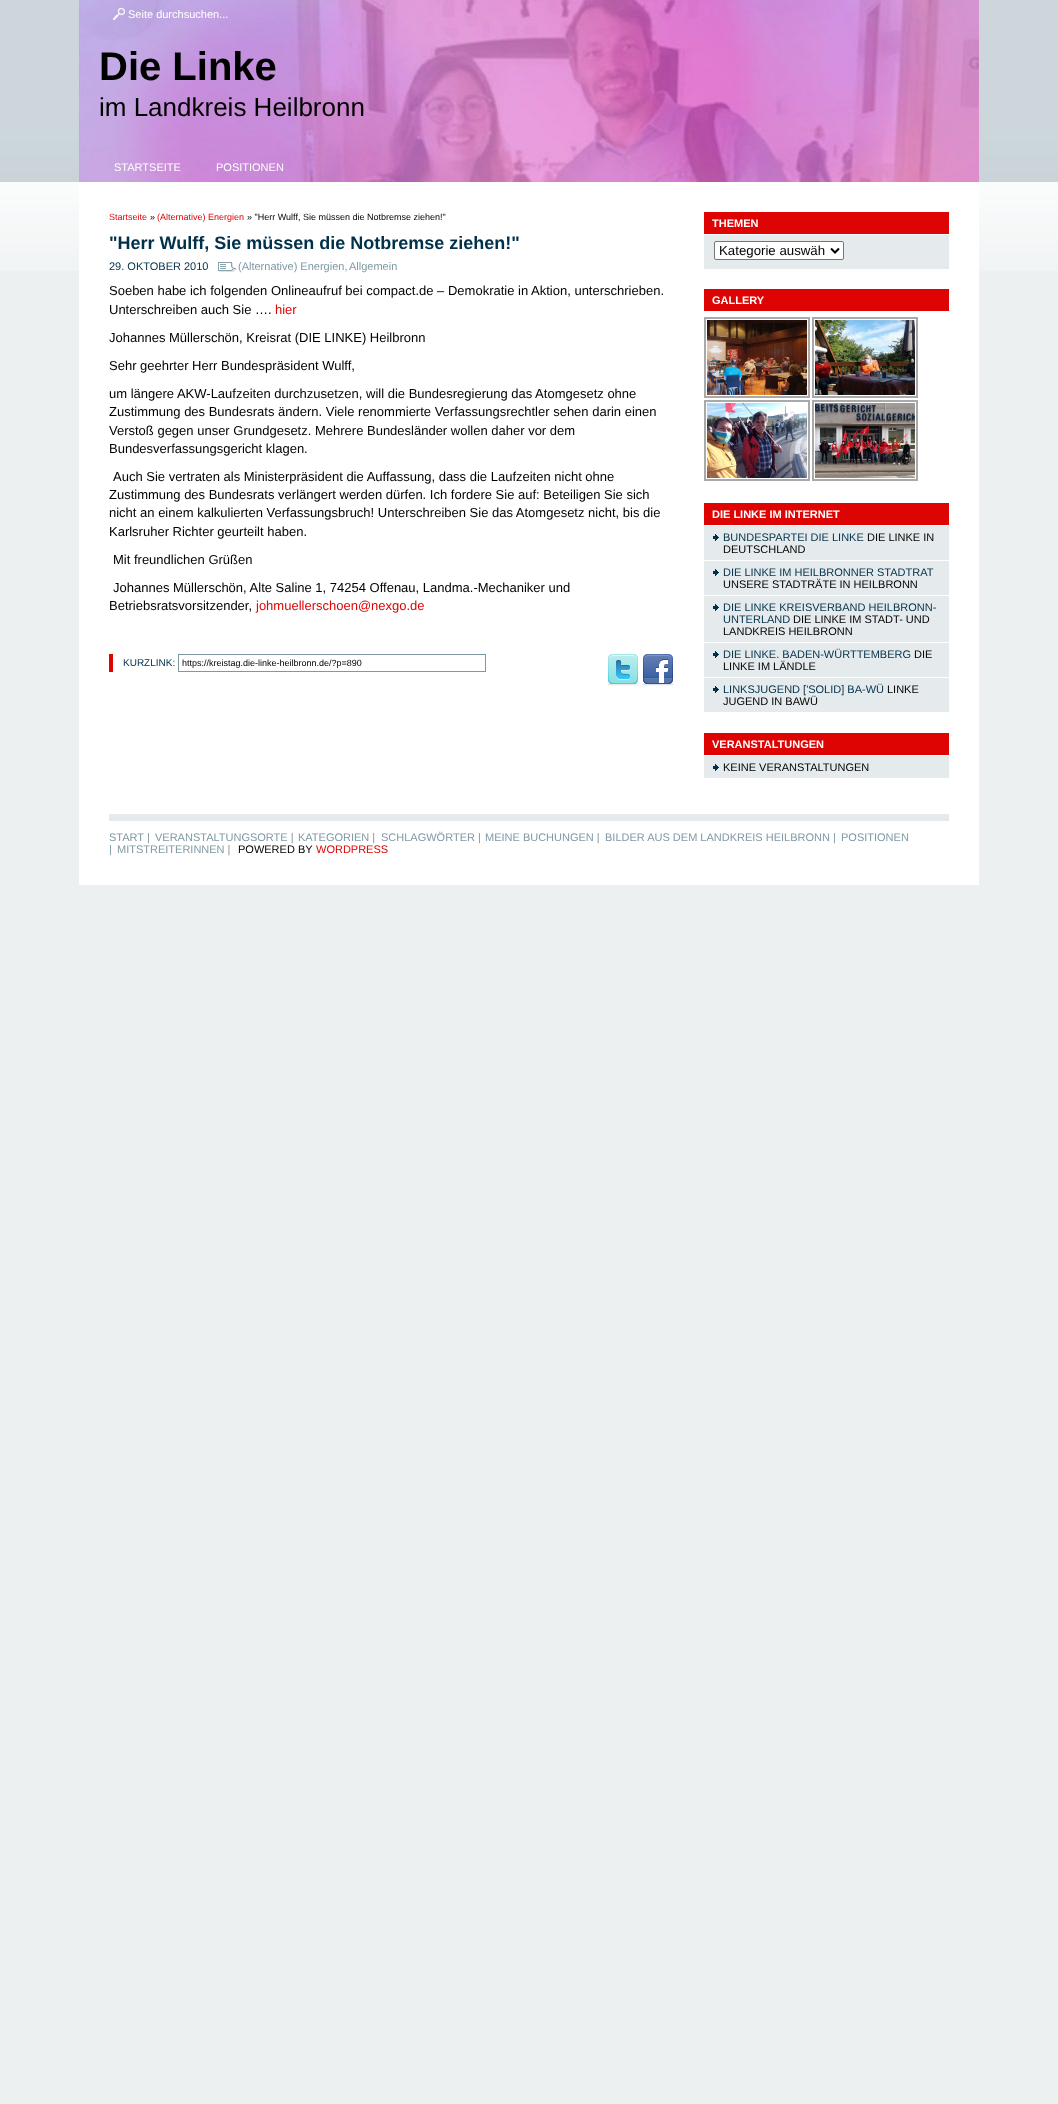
<svg xmlns="http://www.w3.org/2000/svg" width="1058" height="2104">
	<rect width="100%" height="100%" fill="#ECF0F1" />
	<image x="0" y="0" width="1058" height="271" href="assets/img1.png" />
	<rect x="79" y="182" width="900" height="703" fill="#FFFFFF" />
	<image x="79" y="0" width="900" height="182" href="assets/img2.png" />
	<image x="113" y="8" width="12" height="12" href="assets/img3.png" />
	<text x="128" y="18" font-family="Liberation Sans" font-size="11" fill="#FFFFFF">Seite durchsuchen...</text>
	<text x="99" y="80" font-family="Liberation Sans" font-size="40" font-weight="700" fill="#000000">Die Linke</text>
	<text x="99" y="116" font-family="Liberation Sans" font-size="26" fill="#000000">im Landkreis Heilbronn</text>
	<g font-family="Liberation Sans" font-size="11" fill="#FFFFFF">
		<text x="114" y="171">STARTSEITE</text>
		<text x="216" y="171">POSITIONEN</text>
	</g>
	<text x="109" y="220" font-family="Liberation Sans" font-size="9" fill="#DF0404">Startseite</text>
	<text x="150" y="220" font-family="Liberation Sans" font-size="9" fill="#000000">»</text>
	<text x="157" y="220" font-family="Liberation Sans" font-size="9" fill="#DF0404">(Alternative) Energien</text>
	<text x="247" y="220" font-family="Liberation Sans" font-size="9" fill="#000000">» "Herr Wulff, Sie müssen die Notbremse ziehen!"</text>
	<text x="109" y="249" font-family="Liberation Sans" font-size="18" font-weight="700" fill="#00314A">"Herr Wulff, Sie müssen die Notbremse ziehen!"</text>
	<text x="109" y="270" font-family="Liberation Sans" font-size="11" fill="#00314A">29. OKTOBER 2010</text>
	<image x="218" y="262" width="19" height="10" href="assets/img4.png" />
	<g font-family="Liberation Sans" font-size="11" fill="#7F98A4">
		<text x="238" y="270">(Alternative) Energien,</text>
		<text x="349" y="270">Allgemein</text>
	</g>
	<g font-family="Liberation Sans" font-size="13" fill="#000000">
		<text x="109" y="295">Soeben habe ich folgenden Onlineaufruf bei compact.de – Demokratie in Aktion, unterschrieben.</text>
		<text x="109" y="314">Unterschreiben auch Sie ….</text>
	</g>
	<text x="275" y="314" font-family="Liberation Sans" font-size="13" fill="#DF0404">hier</text>
	<g font-family="Liberation Sans" font-size="13" fill="#000000">
		<text x="109" y="342">Johannes Müllerschön, Kreisrat (DIE LINKE) Heilbronn</text>
		<text x="109" y="370">Sehr geehrter Herr Bundespräsident Wulff,</text>
		<text x="109" y="398">um längere AKW-Laufzeiten durchzusetzen, will die Bundesregierung das Atomgesetz ohne</text>
		<text x="109" y="416">Zustimmung des Bundesrats ändern. Viele renommierte Verfassungsrechtler sehen darin einen</text>
		<text x="109" y="435">Verstoß gegen unser Grundgesetz. Mehrere Bundesländer wollen daher vor dem</text>
		<text x="109" y="453">Bundesverfassungsgericht klagen.</text>
		<text x="113" y="481">Auch Sie vertraten als Ministerpräsident die Auffassung, dass die Laufzeiten nicht ohne</text>
		<text x="109" y="499">Zustimmung des Bundesrats verlängert werden dürfen. Ich fordere Sie auf: Beteiligen Sie sich</text>
		<text x="109" y="517">nicht an einem kalkulierten Verfassungsbruch! Unterschreiben Sie das Atomgesetz nicht, bis die</text>
		<text x="109" y="536">Karlsruher Richter geurteilt haben.</text>
		<text x="113" y="564">Mit freundlichen Grüßen</text>
		<text x="113" y="592">Johannes Müllerschön, Alte Saline 1, 74254 Offenau, Landma.-Mechaniker und</text>
		<text x="109" y="610">Betriebsratsvorsitzender,</text>
	</g>
	<text x="256" y="610" font-family="Liberation Sans" font-size="13" fill="#DF0404">johmuellerschoen@nexgo.de</text>
	<rect x="109" y="654" width="4" height="18" fill="#DF0404" />
	<text x="123" y="666" font-family="Liberation Sans" font-size="10" fill="#00314A">KURZLINK:</text>
	<rect x="178.5" y="654.5" width="307" height="17" fill="none" stroke="#7F98A4" />
	<text x="182" y="666" font-family="Liberation Sans" font-size="9" fill="#000000">https://kreistag.die-linke-heilbronn.de/?p=890</text>
	<image x="608" y="654" width="30" height="32" href="assets/img5.png" />
	<image x="642" y="654" width="32" height="32" href="assets/img6.png" />
	<rect x="704" y="212" width="245" height="22" fill="#DF0404" />
	<text x="712" y="227" font-family="Liberation Sans" font-size="11" font-weight="700" fill="#FFFFFF">THEMEN</text>
	<rect x="704" y="235" width="245" height="34" fill="#E5EAED" />
	<rect x="714.5" y="241.5" width="129" height="18" rx="1.5" fill="#FFFFFF" stroke="#767676" />
	<path d="M831 248.5L835 252.5L839 248.5" fill="none" stroke="#000000" stroke-width="2" />
	<text x="719" y="255" font-family="Liberation Sans" font-size="13.25" fill="#000000">Kategorie auswäh</text>
	<rect x="704" y="289" width="245" height="22" fill="#DF0404" />
	<text x="712" y="304" font-family="Liberation Sans" font-size="11" font-weight="700" fill="#FFFFFF">GALLERY</text>
	<rect x="705" y="318" width="104" height="79" fill="none" stroke="#A9A9A9" stroke-width="2" />
	<image x="707" y="320" width="100" height="75" href="assets/img7.png" />
	<rect x="813" y="318" width="104" height="79" fill="none" stroke="#A9A9A9" stroke-width="2" />
	<image x="815" y="320" width="100" height="75" href="assets/img8.png" />
	<rect x="705" y="401" width="104" height="79" fill="none" stroke="#A9A9A9" stroke-width="2" />
	<image x="707" y="403" width="100" height="75" href="assets/img9.png" />
	<rect x="813" y="401" width="104" height="79" fill="none" stroke="#A9A9A9" stroke-width="2" />
	<image x="815" y="403" width="100" height="75" href="assets/img10.png" />
	<rect x="704" y="503" width="245" height="22" fill="#DF0404" />
	<text x="712" y="518" font-family="Liberation Sans" font-size="11" font-weight="700" fill="#FFFFFF">DIE LINKE IM INTERNET</text>
	<rect x="704" y="526" width="245" height="34" fill="#E5EAED" />
	<image x="713" y="534" width="6" height="7" href="assets/img11.png" />
	<text x="723" y="541" font-family="Liberation Sans" font-size="11" fill="#00314A">BUNDESPARTEI DIE LINKE</text>
	<g font-family="Liberation Sans" font-size="11" fill="#000000">
		<text x="867" y="541">DIE LINKE IN</text>
		<text x="723" y="553">DEUTSCHLAND</text>
	</g>
	<rect x="704" y="561" width="245" height="34" fill="#E5EAED" />
	<image x="713" y="569" width="6" height="7" href="assets/img11.png" />
	<text x="723" y="576" font-family="Liberation Sans" font-size="11" fill="#00314A">DIE LINKE IM HEILBRONNER STADTRAT</text>
	<text x="723" y="588" font-family="Liberation Sans" font-size="11" fill="#000000">UNSERE STADTRÄTE IN HEILBRONN</text>
	<rect x="704" y="596" width="245" height="46" fill="#E5EAED" />
	<image x="713" y="604" width="6" height="7" href="assets/img11.png" />
	<g font-family="Liberation Sans" font-size="11" fill="#00314A">
		<text x="723" y="611">DIE LINKE KREISVERBAND HEILBRONN-</text>
		<text x="723" y="623">UNTERLAND</text>
	</g>
	<g font-family="Liberation Sans" font-size="11" fill="#000000">
		<text x="793" y="623">DIE LINKE IM STADT- UND</text>
		<text x="723" y="635">LANDKREIS HEILBRONN</text>
	</g>
	<rect x="704" y="643" width="245" height="34" fill="#E5EAED" />
	<image x="713" y="651" width="6" height="7" href="assets/img11.png" />
	<text x="723" y="658" font-family="Liberation Sans" font-size="11" fill="#00314A">DIE LINKE. BADEN-WÜRTTEMBERG</text>
	<g font-family="Liberation Sans" font-size="11" fill="#000000">
		<text x="914" y="658">DIE</text>
		<text x="723" y="670">LINKE IM LÄNDLE</text>
	</g>
	<rect x="704" y="678" width="245" height="34" fill="#E5EAED" />
	<image x="713" y="686" width="6" height="7" href="assets/img11.png" />
	<text x="723" y="693" font-family="Liberation Sans" font-size="11" fill="#00314A">LINKSJUGEND ['SOLID] BA-WÜ</text>
	<g font-family="Liberation Sans" font-size="11" fill="#000000">
		<text x="887" y="693">LINKE</text>
		<text x="723" y="705">JUGEND IN BAWÜ</text>
	</g>
	<rect x="704" y="733" width="245" height="22" fill="#DF0404" />
	<text x="712" y="748" font-family="Liberation Sans" font-size="11" font-weight="700" fill="#FFFFFF">VERANSTALTUNGEN</text>
	<rect x="704" y="756" width="245" height="22" fill="#E5EAED" />
	<image x="713" y="764" width="6" height="7" href="assets/img11.png" />
	<text x="723" y="771" font-family="Liberation Sans" font-size="11" fill="#000000">KEINE VERANSTALTUNGEN</text>
	<rect x="109" y="814" width="840" height="7" fill="#E5EAED" />
	<g font-family="Liberation Sans" font-size="11" fill="#7F98A4">
		<text x="109" y="841">START |</text>
		<text x="155" y="841">VERANSTALTUNGSORTE |</text>
		<text x="298" y="841">KATEGORIEN |</text>
		<text x="381" y="841">SCHLAGWÖRTER |</text>
		<text x="485" y="841">MEINE BUCHUNGEN |</text>
		<text x="605" y="841">BILDER AUS DEM LANDKREIS HEILBRONN |</text>
		<text x="841" y="841">POSITIONEN</text>
		<text x="109" y="853">|</text>
		<text x="117" y="853">MITSTREITERINNEN |</text>
	</g>
	<text x="238" y="853" font-family="Liberation Sans" font-size="11" fill="#000000">POWERED BY</text>
	<text x="316" y="853" font-family="Liberation Sans" font-size="11" fill="#DF0404">WORDPRESS</text>
</svg>
